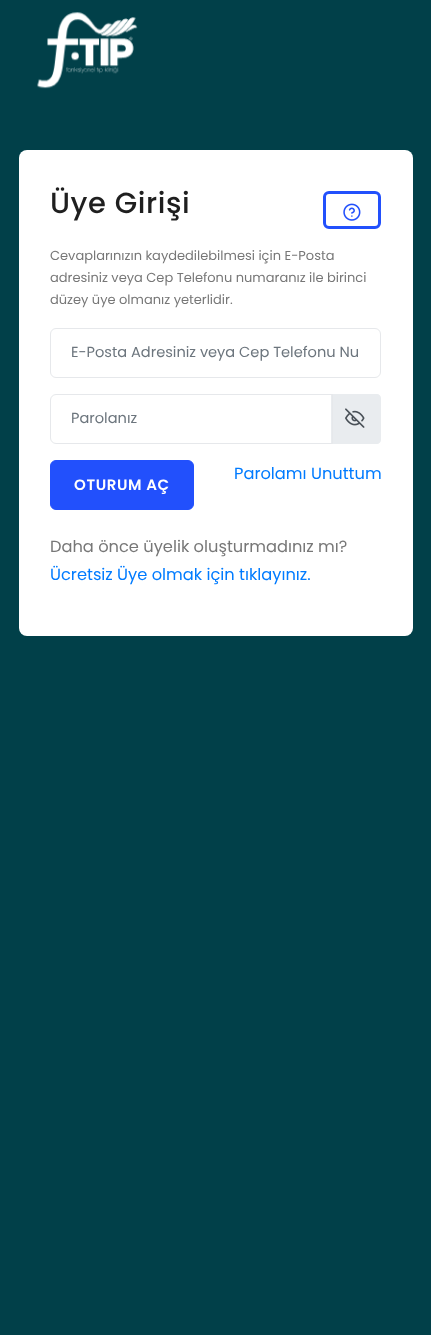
<svg xmlns="http://www.w3.org/2000/svg" width="431" height="1335">
	<rect width="100%" height="100%" fill="#014049" />
	<image x="37" y="12" width="101" height="77" href="assets/img1.png" />
	<rect x="19" y="150" width="394" height="486" rx="8" fill="#FFFFFF" />
	<text x="50" y="213" font-family="Poppins" font-size="29" font-weight="500" letter-spacing="0.6" fill="#1F1F1F">Üye Girişi</text>
	<rect x="324.5" y="192.5" width="55" height="35" rx="4.5" fill="none" stroke="#2250FC" stroke-width="3" />
	<image x="343" y="203" width="18" height="18" href="assets/img2.png" />
	<g font-family="Poppins" font-size="13" fill="#777777">
		<text x="50" y="260">Cevaplarınızın kaydedilebilmesi için E-Posta</text>
		<text x="50" y="282">adresiniz veya Cep Telefonu numaranız ile birinci</text>
		<text x="50" y="304">düzey üye olmanız yeterlidir.</text>
	</g>
	<rect x="50.5" y="328.5" width="330" height="49" rx="5.5" fill="none" stroke="#E6E8EB" />
	<text x="71" y="357" font-family="Poppins" font-size="14.6" fill="#6C757D">E-Posta Adresiniz veya Cep Telefonu Nu</text>
	<path d="M328 394H377C379 394 381 396 381 398V440C381 442 379 444 377 444H328Z" fill="#E9ECEF" />
	<path d="M56 395H331V443H56C53 443 51 441 51 438V400C51 397 53 395 56 395Z" fill="#FFFFFF" />
	<path d="M56 394.5H332.5V443.5H56C53 443.5 50.5 441 50.5 438V400C50.5 397 53 394.5 56 394.5Z" fill="none" stroke="#E6E8EB" />
	<text x="71" y="423" font-family="Poppins" font-size="14.6" fill="#6C757D">Parolanız</text>
	<image x="345" y="408" width="20" height="20" href="assets/img3.png" />
	<text x="234" y="479" font-family="Poppins" font-size="16.25" fill="#007BFF">Parolamı Unuttum</text>
	<rect x="50.5" y="460.5" width="143" height="49" rx="5.5" fill="#2250FC" stroke="#2250FC" />
	<text x="74" y="490" font-family="Poppins" font-size="15" font-weight="600" letter-spacing="0.6" fill="#FFFFFF">OTURUM AÇ</text>
	<text x="50" y="552" font-family="Poppins" font-size="16.25" fill="#777777">Daha önce üyelik oluşturmadınız mı?</text>
	<text x="50" y="580" font-family="Poppins" font-size="16.25" fill="#007BFF">Ücretsiz Üye olmak için tıklayınız.</text>
</svg>
